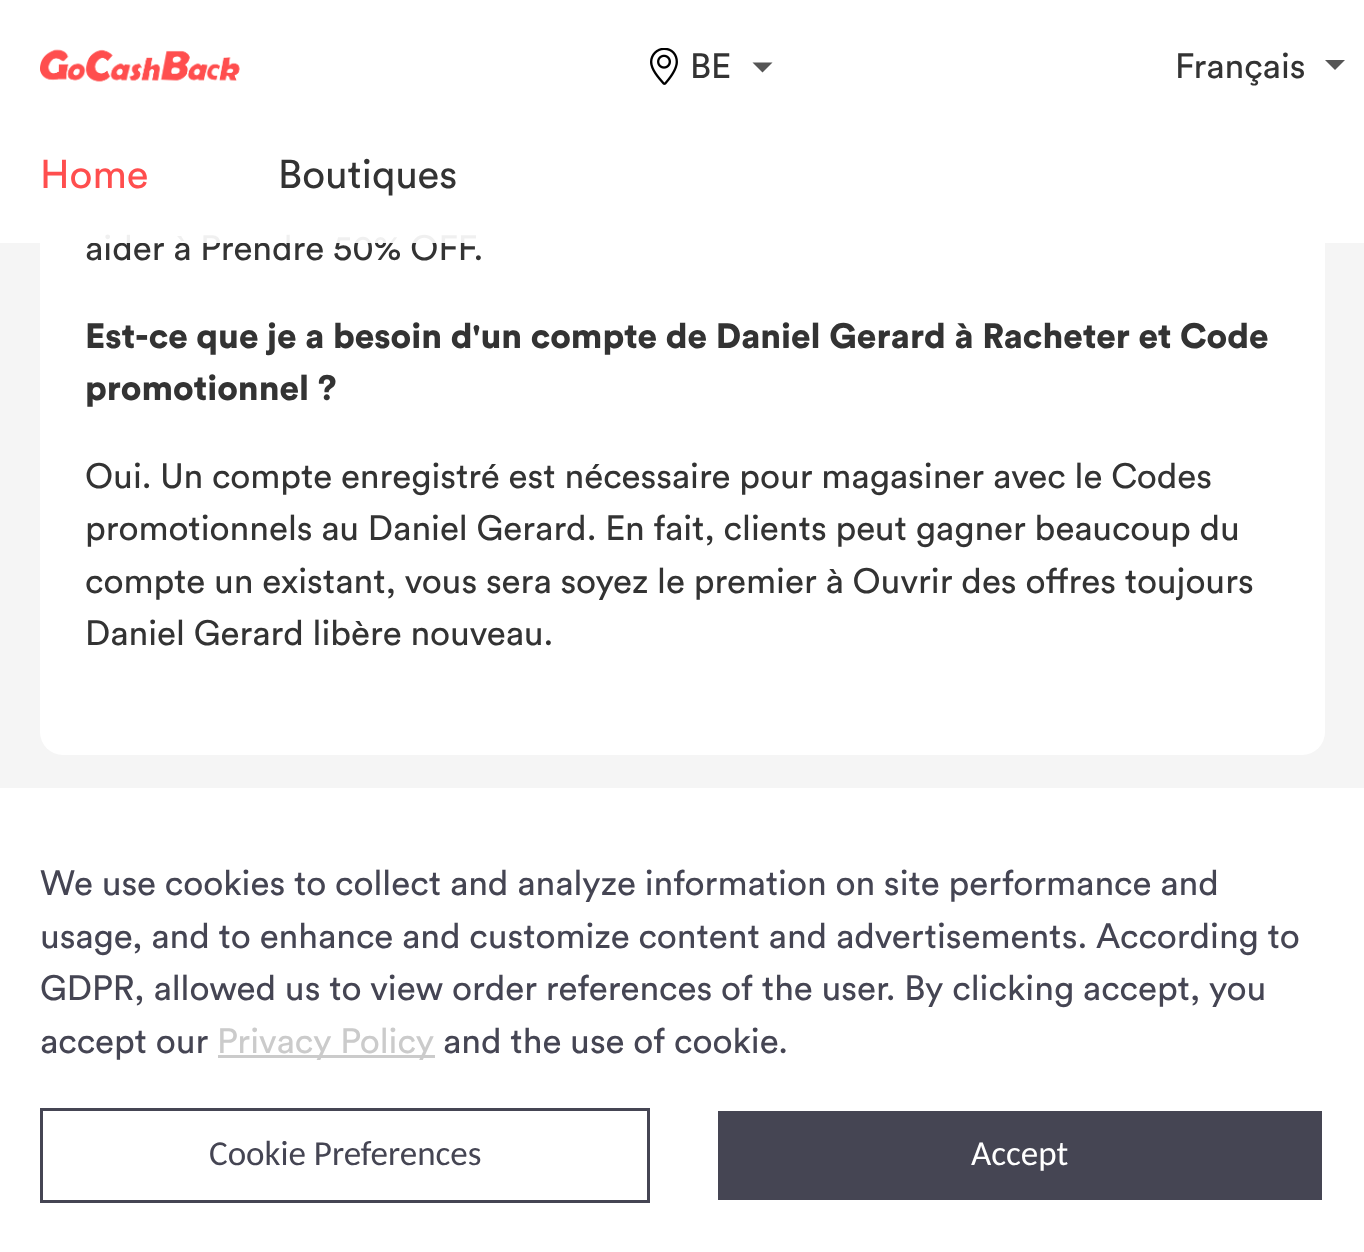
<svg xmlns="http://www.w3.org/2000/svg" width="1364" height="1252">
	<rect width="100%" height="100%" fill="#F5F5F5" />
	<rect x="40" y="-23" width="1285" height="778" rx="23" fill="#FFFFFF" />
	<text x="85" y="260" font-family="Circular" font-size="35" fill="#333333">aider à Prendre 50% OFF.</text>
	<rect x="0" y="0" width="1364" height="243" fill="#FFFFFF" fill-opacity="0.93" />
	<image x="40" y="49" width="200" height="33" href="assets/img1.png" />
	<image x="650" y="48" width="28" height="37" href="assets/img2.png" />
	<text x="690" y="78" font-family="Circular" font-size="35" fill="#333333">BE</text>
	<path d="M752.5 62.5H772.5L762.5 72.5Z" fill="#555555" />
	<text x="1175" y="78" font-family="Circular" font-size="35" fill="#333333">Français</text>
	<path d="M1325 60H1345L1335 70Z" fill="#555555" />
	<text x="40" y="188" font-family="Circular" font-size="40" fill="#FF4E4E">Home</text>
	<text x="278" y="188" font-family="Circular" font-size="40" fill="#333333">Boutiques</text>
	<g font-family="Circular" font-size="35" font-weight="900" fill="#333333">
		<text x="85" y="348">Est-ce que je a besoin d'un compte de Daniel Gerard à Racheter et Code</text>
		<text x="85" y="400">promotionnel ?</text>
	</g>
	<g font-family="Circular" font-size="35" fill="#333333">
		<text x="85" y="488">Oui. Un compte enregistré est nécessaire pour magasiner avec le Codes</text>
		<text x="85" y="540">promotionnels au Daniel Gerard. En fait, clients peut gagner beaucoup du</text>
		<text x="85" y="593">compte un existant, vous sera soyez le premier à Ouvrir des offres toujours</text>
		<text x="85" y="645">Daniel Gerard libère nouveau.</text>
	</g>
	<rect x="0" y="788" width="1364" height="464" fill="#FFFFFF" />
	<g font-family="Circular" font-size="35" fill="#454553">
		<text x="40" y="895">We use cookies to collect and analyze information on site performance and</text>
		<text x="40" y="948">usage, and to enhance and customize content and advertisements. According to</text>
		<text x="40" y="1000">GDPR, allowed us to view order references of the user. By clicking accept, you</text>
		<text x="40" y="1053">accept our</text>
	</g>
	<rect x="218" y="1055" width="217" height="3" fill="#CBCBCB" />
	<text x="217" y="1053" font-family="Circular" font-size="35" fill="#CBCBCB">Privacy Policy</text>
	<text x="443" y="1053" font-family="Circular" font-size="35" fill="#454553">and the use of cookie.</text>
	<rect x="41.5" y="1109.5" width="607" height="92" fill="none" stroke="#454553" stroke-width="3" />
	<text x="209" y="1165" font-family="Carlito" font-size="35" fill="#454553">Cookie Preferences</text>
	<rect x="718" y="1111" width="604" height="89" fill="#454553" />
	<text x="971" y="1165" font-family="Carlito" font-size="35" fill="#FFFFFF">Accept</text>
</svg>
